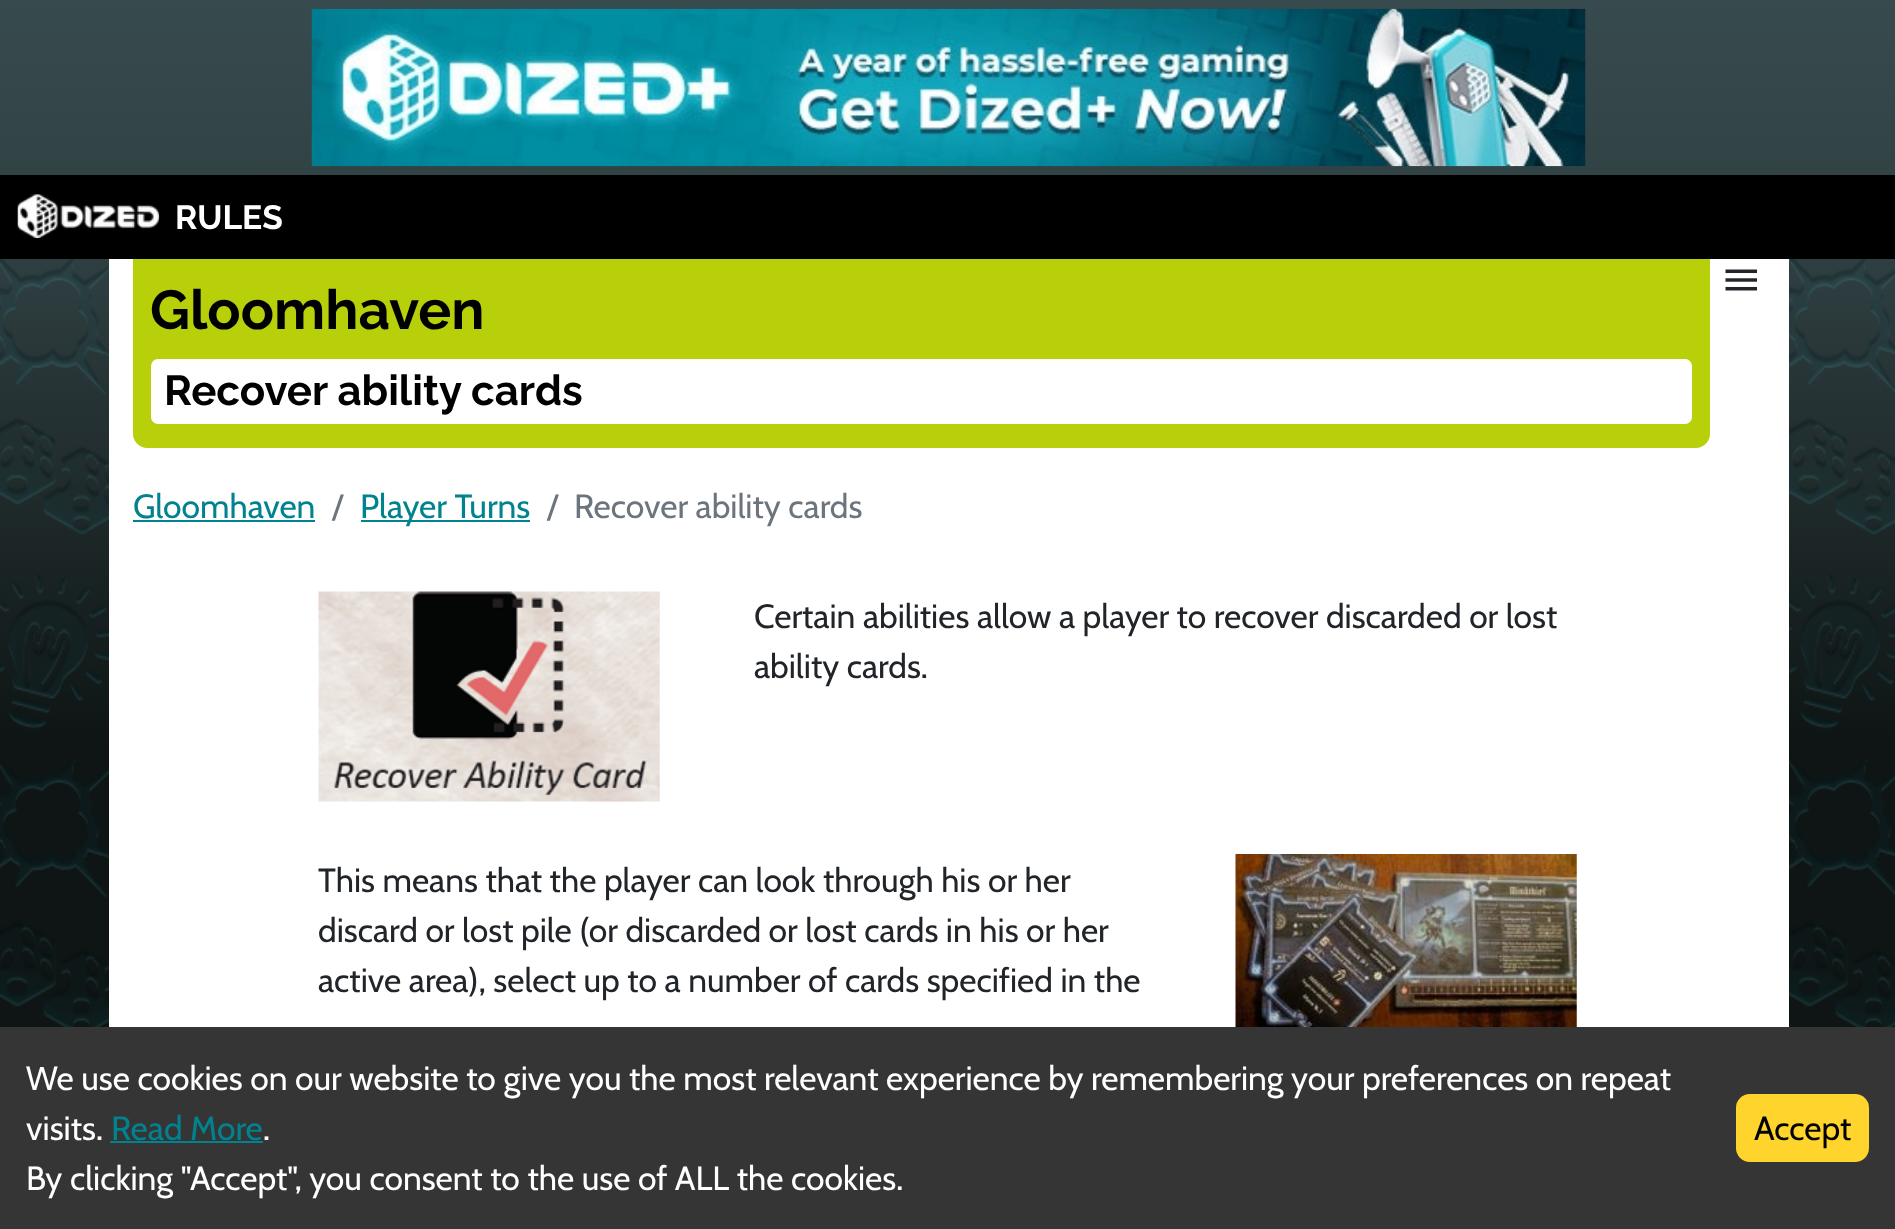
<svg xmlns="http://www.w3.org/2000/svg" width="1895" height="1229">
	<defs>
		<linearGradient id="g1" gradientUnits="userSpaceOnUse" x1="948" y1="0" x2="948" y2="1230"><stop offset="0" stop-color="#374A4E" /><stop offset="0.2" stop-color="#304042" /><stop offset="0.6" stop-color="#0F1515" /></linearGradient>
	</defs>
	<rect width="100%" height="100%" fill="#FFFFFF" />
	<rect x="0" y="0" width="1895" height="1027" fill="url(#g1)" />
	<image x="311" y="8" width="1275" height="159" href="assets/img1.png" />
	<rect x="0" y="175" width="1895" height="84" fill="#000000" />
	<image x="17" y="194" width="143" height="44" href="assets/img2.png" />
	<text x="175" y="229" font-family="Raleway" font-size="33.6" font-weight="700" fill="#FFFFFF">RULES</text>
	<image x="0" y="259" width="1895" height="768" href="assets/img3.png" />
	<rect x="109" y="259" width="1680" height="768" fill="#FFFFFF" />
	<image x="1725" y="269" width="32" height="22" href="assets/img4.png" />
	<path d="M133 259H1710V434C1710 441.5 1703.5 448 1696 448H147C139.5 448 133 441.5 133 434Z" fill="#B8D009" />
	<text x="150" y="329" font-family="Raleway" font-size="55" font-weight="700" fill="#000000">Gloomhaven</text>
	<rect x="151" y="359" width="1541" height="65" rx="7" fill="#FFFFFF" />
	<text x="164" y="405" font-family="Raleway" font-size="42" font-weight="700" fill="#000000">Recover ability cards</text>
	<text x="133" y="518" font-family="Cabin" font-size="33.6" fill="#00838F">Gloomhaven</text>
	<rect x="133" y="520" width="182" height="2" fill="#00838F" />
	<text x="332" y="518" font-family="Cabin" font-size="33.6" fill="#6C757D">/</text>
	<rect x="361" y="520" width="169" height="2" fill="#00838F" />
	<text x="360" y="518" font-family="Cabin" font-size="33.6" fill="#00838F">Player Turns</text>
	<g font-family="Cabin" font-size="33.6" fill="#6C757D">
		<text x="547" y="518">/</text>
		<text x="574" y="518">Recover ability cards</text>
	</g>
	<image x="318" y="591" width="342" height="211" href="assets/img5.png" />
	<g font-family="Cabin" font-size="33.6" fill="#212529">
		<text x="754" y="628">Certain abilities allow a player to recover discarded or lost</text>
		<text x="754" y="678">ability cards.</text>
		<text x="318" y="892">This means that the player can look through his or her</text>
		<text x="318" y="942">discard or lost pile (or discarded or lost cards in his or her</text>
		<text x="318" y="992">active area), select up to a number of cards specified in the</text>
	</g>
	<image x="1235" y="854" width="342" height="173" href="assets/img6.png" />
	<rect x="0" y="1027" width="1895" height="202" fill="#353535" />
	<g font-family="Cabin" font-size="33.6" fill="#FFFFFF">
		<text x="26" y="1090">We use cookies on our website to give you the most relevant experience by remembering your preferences on repeat</text>
		<text x="26" y="1140">visits.</text>
	</g>
	<text x="111" y="1140" font-family="Cabin" font-size="33.6" fill="#00838F">Read More</text>
	<rect x="110" y="1141" width="153" height="2" fill="#00838F" />
	<g font-family="Cabin" font-size="33.6" fill="#FFFFFF">
		<text x="263" y="1140">.</text>
		<text x="26" y="1190">By clicking "Accept", you consent to the use of ALL the cookies.</text>
	</g>
	<rect x="1736" y="1094" width="133" height="68" rx="14" fill="#FFD42D" />
	<text x="1754" y="1140" font-family="Cabin" font-size="33.6" fill="#000000">Accept</text>
</svg>
